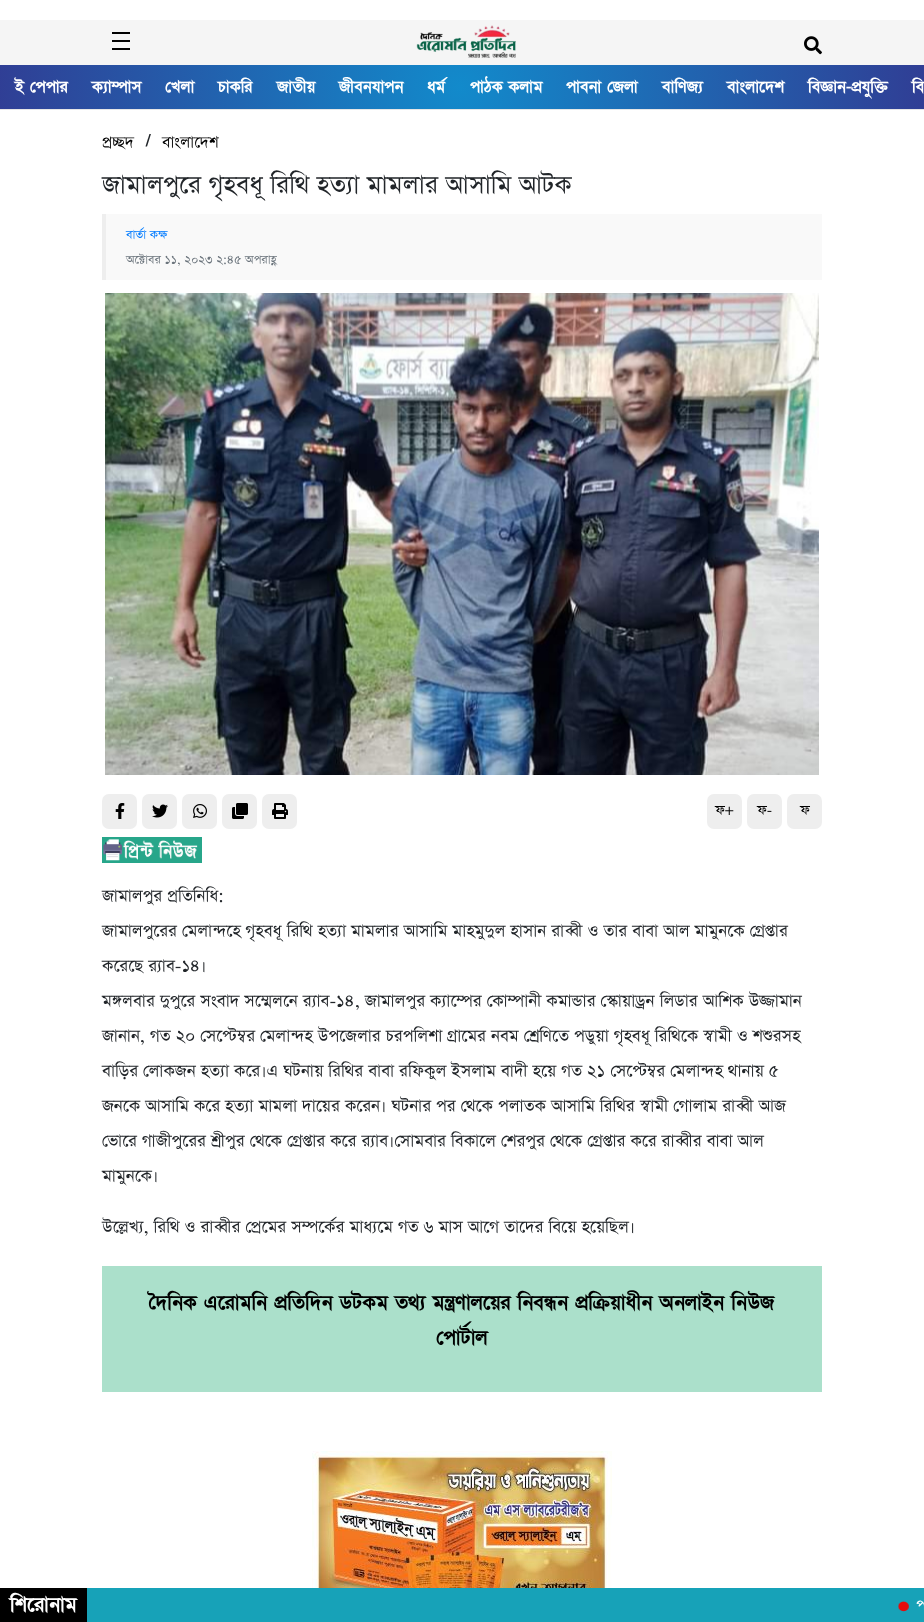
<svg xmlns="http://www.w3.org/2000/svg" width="924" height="1622">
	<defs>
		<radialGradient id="g1" gradientUnits="userSpaceOnUse" cx="460" cy="87" r="495"><stop offset="0" stop-color="#128ACB" /><stop offset="1" stop-color="#323991" /></radialGradient>
	</defs>
	<rect width="100%" height="100%" fill="#FFFFFF" />
	<rect x="0" y="20" width="924" height="45" fill="#F5F5F5" />
	<rect x="112" y="32" width="18" height="2" fill="#000000" />
	<rect x="112" y="40" width="18" height="2" fill="#000000" />
	<rect x="112" y="48" width="18" height="2" fill="#000000" />
	<image x="416" y="25" width="100" height="33" href="assets/img1.png" />
	<image x="804" y="36" width="18" height="19" href="assets/img2.png" />
	<rect x="0" y="109" width="924" height="1" fill="#E6E6E6" />
	<rect x="0" y="65" width="924" height="44" fill="url(#g1)" />
	<g font-family="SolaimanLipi" font-size="16" font-weight="700" fill="#FFFFFF">
		<text x="15" y="92">ই পেপার</text>
		<text x="92" y="92">ক্যাম্পাস</text>
		<text x="165" y="92">খেলা</text>
		<text x="218" y="92">চাকরি</text>
		<text x="277" y="92">জাতীয়</text>
		<text x="339" y="92">জীবনযাপন</text>
		<text x="427" y="92">ধর্ম</text>
		<text x="470" y="92">পাঠক কলাম</text>
		<text x="566" y="92">পাবনা জেলা</text>
		<text x="662" y="92">বাণিজ্য</text>
		<text x="727" y="92">বাংলাদেশ</text>
		<text x="808" y="92">বিজ্ঞান-প্রযুক্তি</text>
		<text x="912" y="92">বি</text>
	</g>
	<text x="102" y="148" font-family="SolaimanLipi" font-size="19" fill="#000000">প্রচ্ছদ</text>
	<text x="146" y="146" font-family="SolaimanLipi" font-size="16" font-weight="700" fill="#212529">/</text>
	<text x="162" y="148" font-family="SolaimanLipi" font-size="19" fill="#000000">বাংলাদেশ</text>
	<text x="102" y="194" font-family="SolaimanLipi" font-size="30" fill="#212529">জামালপুরে গৃহবধূ রিথি হত্যা মামলার আসামি আটক</text>
	<rect x="106" y="214" width="716" height="66" fill="#F9F9F9" />
	<rect x="102" y="214" width="4" height="66" fill="#EEEEEE" />
	<text x="126" y="239" font-family="SolaimanLipi" font-size="14.4" fill="#007BFF">বার্তা কক্ষ</text>
	<text x="126" y="264" font-family="SolaimanLipi" font-size="14.4" fill="#6C757D">অক্টোবর ১১, ২০২৩ ২:৪৫ অপরাহ্ণ</text>
	<image x="105" y="293" width="714" height="482" href="assets/img3.png" />
	<rect x="102" y="794" width="35" height="35" rx="7" fill="#EEEEEE" />
	<image x="115" y="803" width="10" height="16" href="assets/img4.png" />
	<rect x="142" y="794" width="35" height="35" rx="7" fill="#EEEEEE" />
	<image x="152" y="804" width="16" height="14" href="assets/img5.png" />
	<rect x="182" y="794" width="35" height="35" rx="7" fill="#EEEEEE" />
	<image x="193" y="804" width="14" height="14" href="assets/img6.png" />
	<rect x="222" y="794" width="35" height="35" rx="7" fill="#EEEEEE" />
	<image x="232" y="803" width="16" height="16" href="assets/img7.png" />
	<rect x="262" y="794" width="35" height="35" rx="7" fill="#EEEEEE" />
	<image x="272" y="803" width="16" height="16" href="assets/img8.png" />
	<rect x="707" y="794" width="35" height="35" rx="7" fill="#EEEEEE" />
	<text x="715" y="815" font-family="SolaimanLipi" font-size="16" fill="#000000">ফ+</text>
	<rect x="747" y="794" width="35" height="35" rx="7" fill="#EEEEEE" />
	<text x="757" y="815" font-family="SolaimanLipi" font-size="16" fill="#000000">ফ-</text>
	<rect x="787" y="794" width="35" height="35" rx="7" fill="#EEEEEE" />
	<text x="800" y="815" font-family="SolaimanLipi" font-size="16" fill="#000000">ফ</text>
	<image x="102" y="837" width="100" height="26" href="assets/img9.png" />
	<g font-family="SolaimanLipi" font-size="20" fill="#212529">
		<text x="102" y="902">জামালপুর প্রতিনিধি:</text>
		<text x="102" y="937">জামালপুরের মেলান্দহে গৃহবধূ রিথি হত্যা মামলার আসামি মাহমুদুল হাসান রাব্বী ও তার বাবা আল মামুনকে গ্রেপ্তার</text>
		<text x="102" y="972">করেছে র‌্যাব-১৪।</text>
		<text x="102" y="1007">মঙ্গলবার দুপুরে সংবাদ সম্মেলনে র‌্যাব-১৪, জামালপুর ক্যাম্পের কোম্পানী কমান্ডার স্কোয়াড্রন লিডার আশিক উজ্জামান</text>
		<text x="102" y="1042">জানান, গত ২০ সেপ্টেম্বর মেলান্দহ উপজেলার চরপলিশা গ্রামের নবম শ্রেণিতে পডুয়া গৃহবধূ রিথিকে স্বামী ও শশুরসহ</text>
		<text x="102" y="1077">বাড়ির লোকজন হত্যা করে।এ ঘটনায় রিথির বাবা রফিকুল ইসলাম বাদী হয়ে গত ২১ সেপ্টেম্বর মেলান্দহ থানায় ৫</text>
		<text x="102" y="1112">জনকে আসামি করে হত্যা মামলা দায়ের করেন। ঘটনার পর থেকে পলাতক আসামি রিথির স্বামী গোলাম রাব্বী আজ</text>
		<text x="102" y="1147">ভোরে গাজীপুরের শ্রীপুর থেকে গ্রেপ্তার করে র‌্যাব।সোমবার বিকালে শেরপুর থেকে গ্রেপ্তার করে রাব্বীর বাবা আল</text>
		<text x="102" y="1182">মামুনকে।</text>
		<text x="102" y="1233">উল্লেখ্য, রিথি ও রাব্বীর প্রেমের সম্পর্কের মাধ্যমে গত ৬ মাস আগে তাদের বিয়ে হয়েছিল।</text>
	</g>
	<rect x="102" y="1266" width="720" height="126" fill="#ABE0CB" />
	<g font-family="SolaimanLipi" font-size="20" font-weight="700" fill="#000000">
		<text x="149" y="1309">দৈনিক এরোমনি প্রতিদিন ডটকম তথ্য মন্ত্রণালয়ের নিবন্ধন প্রক্রিয়াধীন অনলাইন নিউজ</text>
		<text x="436" y="1344">পোর্টাল</text>
	</g>
	<image x="312" y="1451" width="300" height="137" href="assets/img10.png" />
	<rect x="87" y="1588" width="837" height="34" fill="#17A2B8" />
	<rect x="0" y="1588" width="87" height="34" fill="#000000" />
	<text x="10" y="1611" font-family="SolaimanLipi" font-size="20" font-weight="700" fill="#FFFFFF">শিরোনাম</text>
	<image x="898" y="1601" width="11" height="11" href="assets/img11.png" />
	<text x="916" y="1611" font-family="SolaimanLipi" font-size="19" fill="#FFFFFF">প</text>
</svg>
